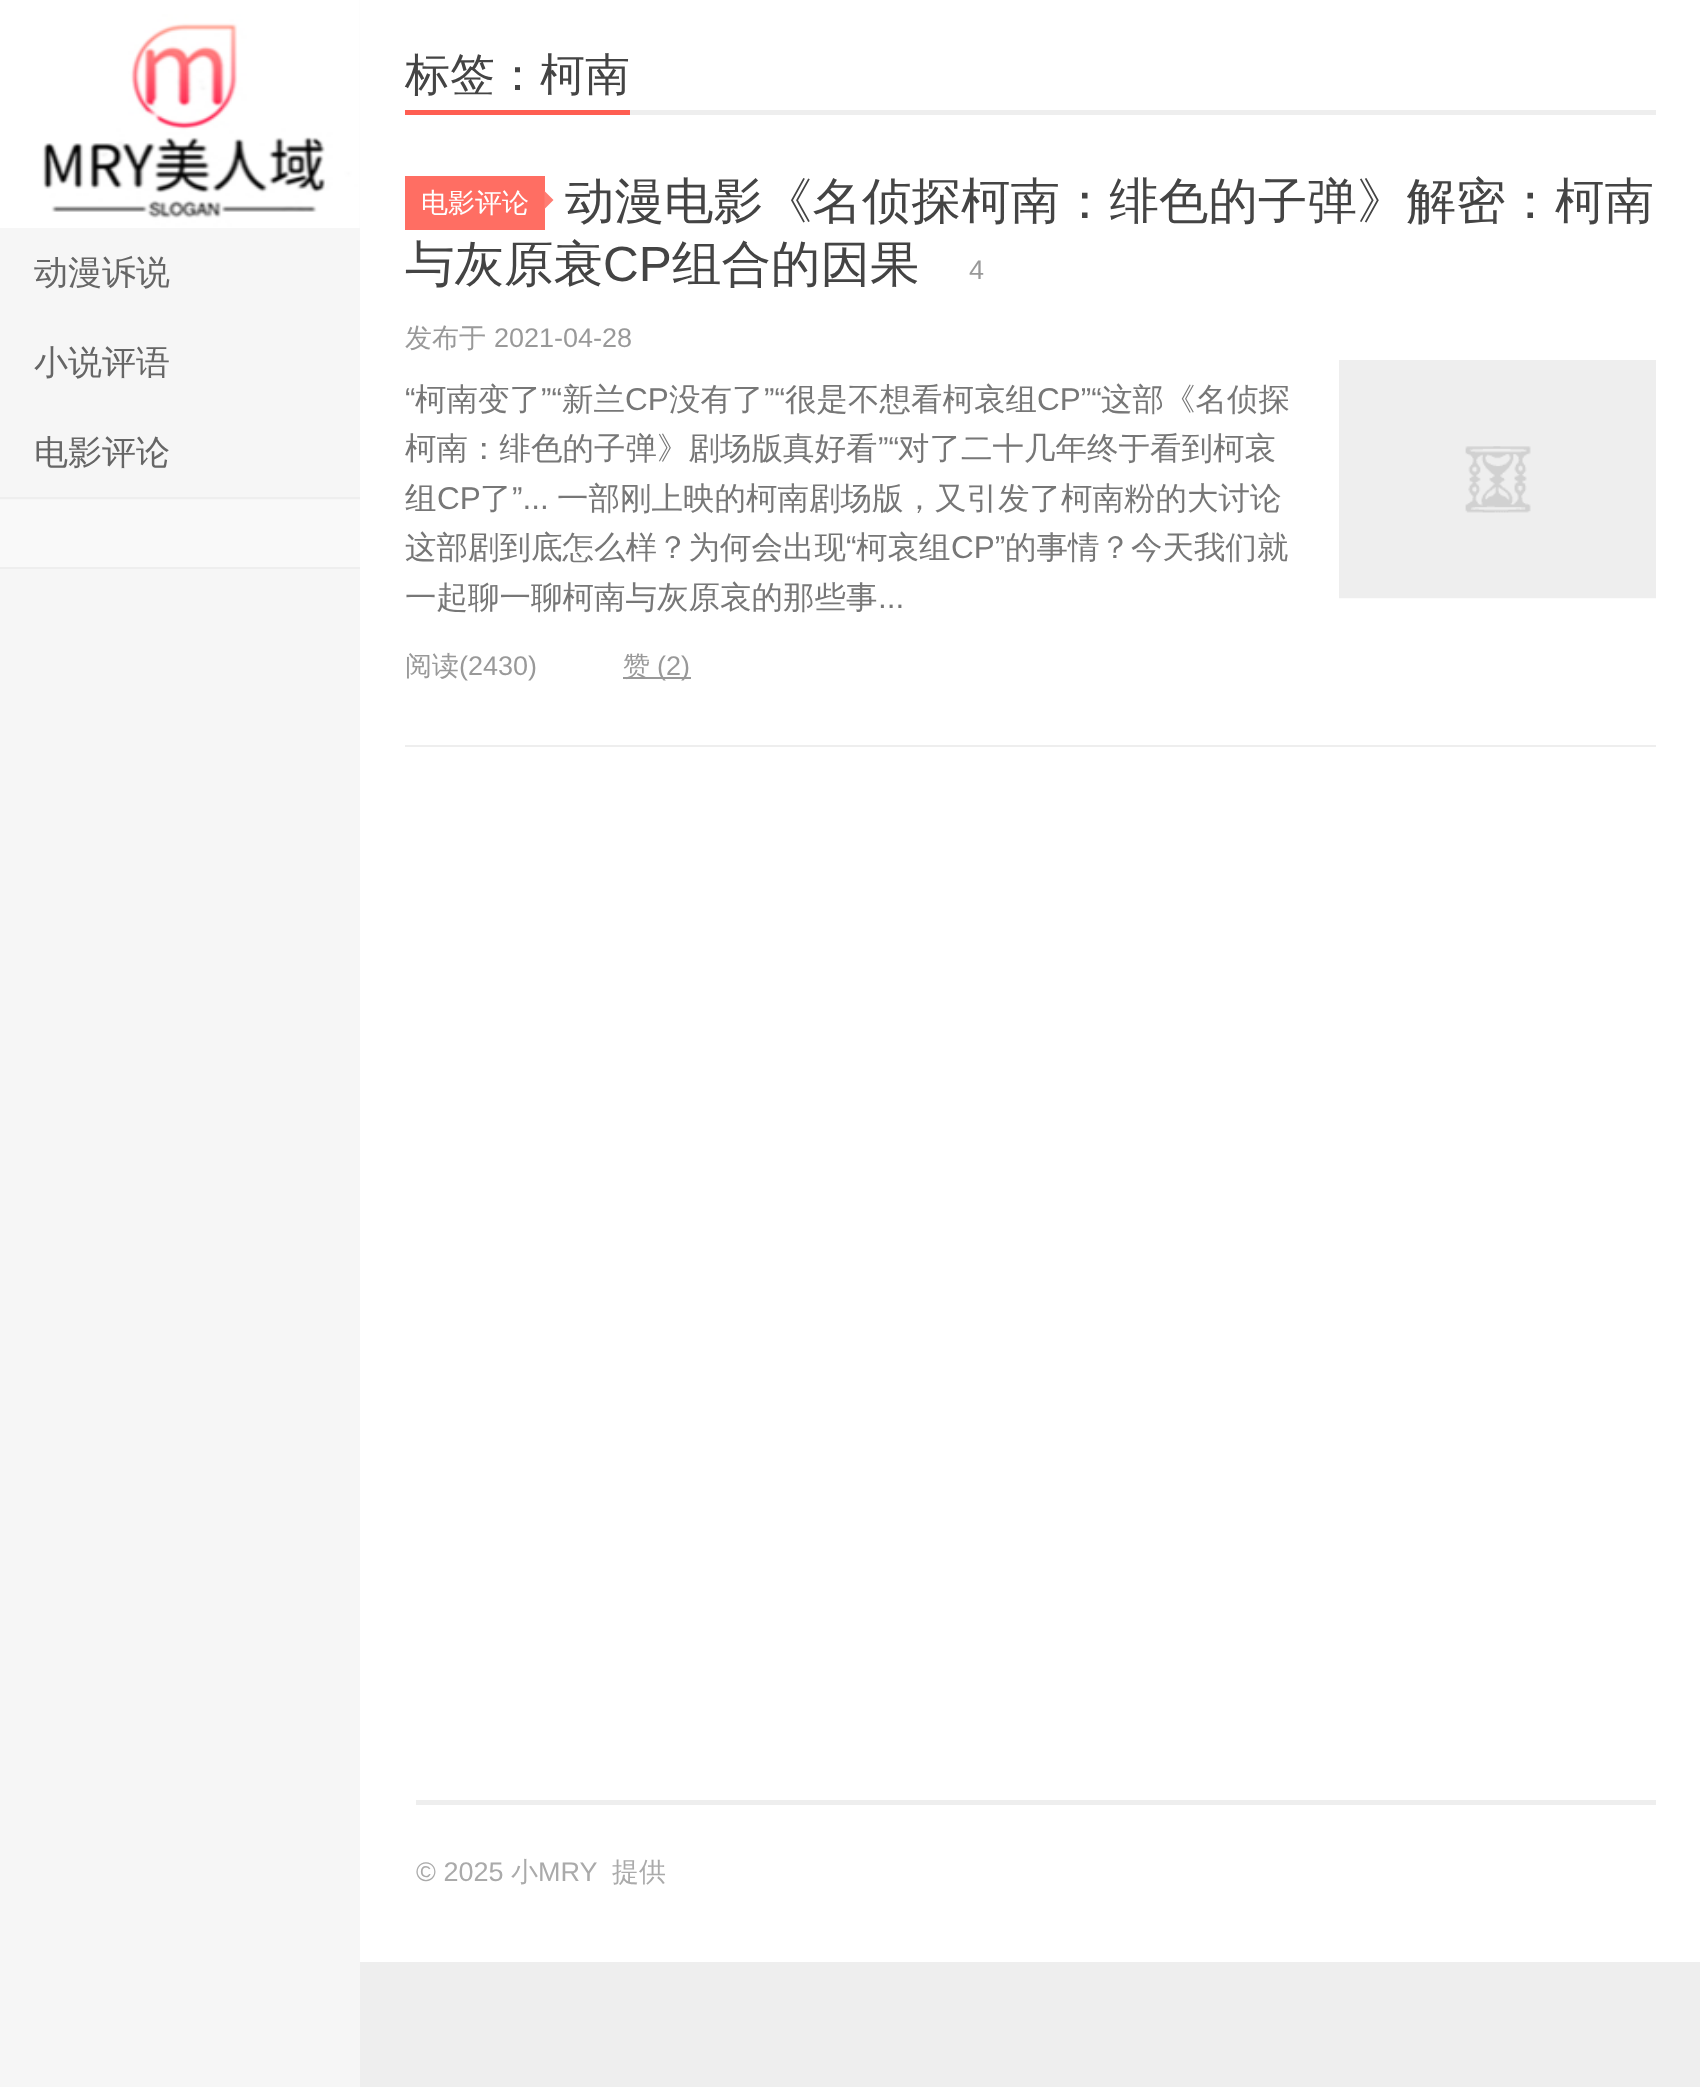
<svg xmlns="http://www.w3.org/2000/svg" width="1700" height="2087">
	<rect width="100%" height="100%" fill="#EEEEEE" />
	<rect x="360" y="0" width="1340" height="1962" fill="#FFFFFF" />
	<rect x="0" y="0" width="360" height="2087" fill="#F6F6F6" />
	<image x="0" y="0" width="360" height="228" href="assets/img1.png" />
	<rect x="0" y="497" width="360" height="2" fill="#EEEEEE" />
	<g font-family="WenQuanYi Zen Hei" font-size="34" font-weight="500" fill="#666666">
		<text x="34" y="284">动漫诉说</text>
		<text x="34" y="374">小说评语</text>
		<text x="34" y="464">电影评论</text>
	</g>
	<rect x="0" y="500" width="360" height="67" fill="#F9F9F9" />
	<rect x="0" y="567" width="360" height="2" fill="#EEEEEE" />
	<rect x="630" y="110" width="1026" height="5" fill="#EEEEEE" />
	<rect x="405" y="110" width="225" height="5" fill="#FF5E52" />
	<text x="405" y="90" font-family="WenQuanYi Zen Hei" font-size="45" font-weight="500" fill="#444444">标签：柯南</text>
	<rect x="405" y="745" width="1251" height="2" fill="#EEEEEE" />
	<rect x="405" y="176" width="140" height="54" fill="#FF6E63" />
	<text x="421" y="212" font-family="WenQuanYi Zen Hei" font-size="27" font-weight="500" fill="#FFFFFF">电影评论</text>
	<path d="M544.5 209V191L553.5 200Z" fill="#FF7D73" />
	<g font-family="WenQuanYi Zen Hei" font-size="49.5" font-weight="500" fill="#444444">
		<text x="565" y="218">动漫电影《名侦探柯南：绯色的子弹》解密：柯南</text>
		<text x="405" y="281">与灰原衰</text>
	</g>
	<text x="603" y="281" font-family="Liberation Sans" font-size="49.5" fill="#444444">CP</text>
	<text x="672" y="281" font-family="WenQuanYi Zen Hei" font-size="49.5" font-weight="500" fill="#444444">组合的因果</text>
	<text x="969" y="279" font-family="Liberation Sans" font-size="27" fill="#999999">4</text>
	<text x="405" y="347" font-family="WenQuanYi Zen Hei" font-size="27" font-weight="500" fill="#999999">发布于</text>
	<text x="494" y="347" font-family="Liberation Sans" font-size="27" fill="#999999">2021-04-28</text>
	<text x="405" y="410" font-family="Liberation Sans" font-size="31.5" fill="#777777">“</text>
	<text x="415" y="410" font-family="WenQuanYi Zen Hei" font-size="31.5" font-weight="500" fill="#777777">柯南变了</text>
	<text x="541" y="410" font-family="Liberation Sans" font-size="31.5" fill="#777777">”“</text>
	<text x="562" y="410" font-family="WenQuanYi Zen Hei" font-size="31.5" font-weight="500" fill="#777777">新兰</text>
	<text x="625" y="410" font-family="Liberation Sans" font-size="31.5" fill="#777777">CP</text>
	<text x="669" y="410" font-family="WenQuanYi Zen Hei" font-size="31.5" font-weight="500" fill="#777777">没有了</text>
	<text x="764" y="410" font-family="Liberation Sans" font-size="31.5" fill="#777777">”“</text>
	<text x="785" y="410" font-family="WenQuanYi Zen Hei" font-size="31.5" font-weight="500" fill="#777777">很是不想看柯哀组</text>
	<text x="1037" y="410" font-family="Liberation Sans" font-size="31.5" fill="#777777">CP”“</text>
	<g font-family="WenQuanYi Zen Hei" font-size="31.5" font-weight="500" fill="#777777">
		<text x="1101" y="410">这部《名侦探</text>
		<text x="405" y="459">柯南：绯色的子弹》剧场版真好看</text>
	</g>
	<text x="878" y="459" font-family="Liberation Sans" font-size="31.5" fill="#777777">”“</text>
	<g font-family="WenQuanYi Zen Hei" font-size="31.5" font-weight="500" fill="#777777">
		<text x="898" y="459">对了二十几年终于看到柯哀</text>
		<text x="405" y="509">组</text>
	</g>
	<text x="437" y="509" font-family="Liberation Sans" font-size="31.5" fill="#777777">CP</text>
	<text x="480" y="509" font-family="WenQuanYi Zen Hei" font-size="31.5" font-weight="500" fill="#777777">了</text>
	<text x="512" y="509" font-family="Liberation Sans" font-size="31.5" fill="#777777">”...</text>
	<g font-family="WenQuanYi Zen Hei" font-size="31.5" font-weight="500" fill="#777777">
		<text x="557" y="509">一部刚上映的柯南剧场版，又引发了柯南粉的大讨论</text>
		<text x="405" y="558">这部剧到底怎么样？为何会出现</text>
	</g>
	<text x="846" y="558" font-family="Liberation Sans" font-size="31.5" fill="#777777">“</text>
	<text x="856" y="558" font-family="WenQuanYi Zen Hei" font-size="31.5" font-weight="500" fill="#777777">柯哀组</text>
	<text x="951" y="558" font-family="Liberation Sans" font-size="31.5" fill="#777777">CP”</text>
	<g font-family="WenQuanYi Zen Hei" font-size="31.5" font-weight="500" fill="#777777">
		<text x="1005" y="558">的事情？今天我们就</text>
		<text x="405" y="608">一起聊一聊柯南与灰原哀的那些事</text>
	</g>
	<text x="878" y="608" font-family="Liberation Sans" font-size="31.5" fill="#777777">...</text>
	<image x="1339" y="360" width="317" height="239" href="assets/img2.png" />
	<text x="405" y="675" font-family="WenQuanYi Zen Hei" font-size="27" font-weight="500" fill="#999999">阅读</text>
	<text x="459" y="675" font-family="Liberation Sans" font-size="27" fill="#999999">(2430)</text>
	<rect x="623" y="677" width="68" height="2" fill="#999999" />
	<text x="623" y="675" font-family="WenQuanYi Zen Hei" font-size="27" font-weight="500" fill="#999999">赞</text>
	<text x="657" y="675" font-family="Liberation Sans" font-size="27" fill="#999999">(2)</text>
	<rect x="416" y="1800" width="1240" height="5" fill="#EEEEEE" />
	<text x="416" y="1881" font-family="Liberation Sans" font-size="27" fill="#AAAAAA">© 2025</text>
	<text x="511" y="1881" font-family="WenQuanYi Zen Hei" font-size="27" font-weight="500" fill="#AAAAAA">小</text>
	<text x="538" y="1881" font-family="Liberation Sans" font-size="27" fill="#AAAAAA">MRY</text>
	<text x="612" y="1881" font-family="WenQuanYi Zen Hei" font-size="27" font-weight="500" fill="#AAAAAA">提供</text>
</svg>
